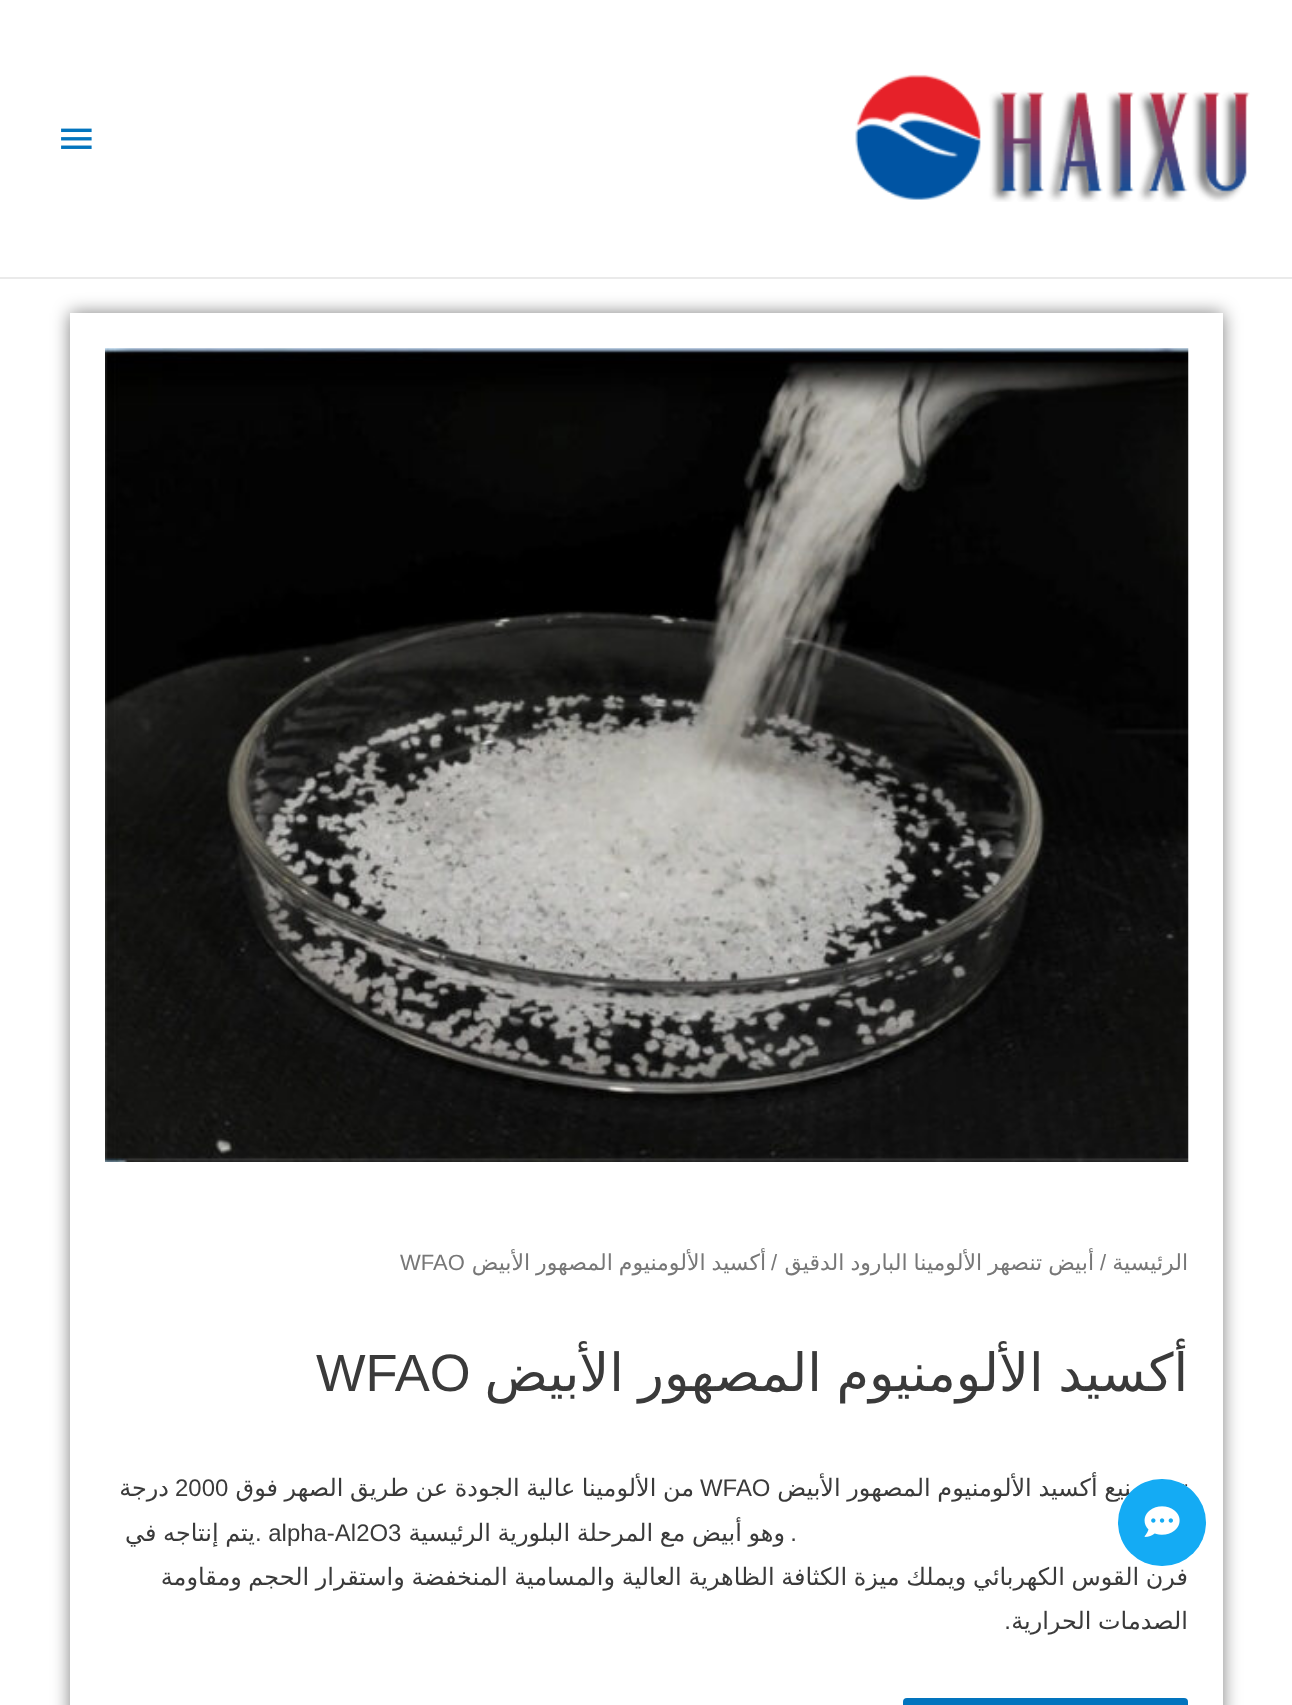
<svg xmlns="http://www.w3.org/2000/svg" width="1292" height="1705">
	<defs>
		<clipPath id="clip1"><path d="M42 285H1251V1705H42ZM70 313H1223V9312H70Z" clip-rule="evenodd" /></clipPath>
	</defs>
	<rect width="100%" height="100%" fill="#FFFFFF" />
	<rect x="0" y="277" width="1292" height="2" fill="#EAEAEA" />
	<image x="855" y="74" width="395" height="128" href="assets/img1.png" />
	<image x="61" y="128" width="31" height="21" href="assets/img2.png" />
	<g clip-path="url(#clip1)">
		<rect x="70" y="313" width="1153" height="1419" fill="#000000" fill-opacity="0.5" filter="blur(9px)" />
	</g>
	<image x="105" y="348" width="1084" height="814" href="assets/img3.png" />
	<text x="1188" y="1270" font-family="DejaVu Sans" font-size="22" direction="rtl" fill="#777777">الرئيسية</text>
	<text x="1100" y="1270" font-family="Liberation Sans" font-size="22" fill="#777777">/</text>
	<text x="1094" y="1270" word-spacing="-1" font-family="DejaVu Sans" font-size="22" direction="rtl" fill="#777777">أبيض تنصهر الألومينا البارود الدقيق</text>
	<text x="777" y="1270" font-family="Liberation Sans" font-size="22" direction="rtl" fill="#777777">/</text>
	<text x="766" y="1270" word-spacing="-1" font-family="DejaVu Sans" font-size="22" direction="rtl" fill="#777777">أكسيد الألومنيوم المصهور الأبيض</text>
	<text x="400" y="1270" font-family="Liberation Sans" font-size="22" fill="#777777">WFAO</text>
	<text x="1188" y="1391" word-spacing="-2" font-family="DejaVu Sans" font-size="52.5" direction="rtl" fill="#3A3A3A">أكسيد الألومنيوم المصهور الأبيض</text>
	<text x="316" y="1391" font-family="Liberation Sans" font-size="52.5" fill="#3A3A3A">WFAO</text>
	<text x="1188" y="1496" word-spacing="-1" font-family="DejaVu Sans" font-size="23.95" direction="rtl" fill="#3A3A3A">تم تصنيع أكسيد الألومنيوم المصهور الأبيض</text>
	<text x="700" y="1496" font-family="Liberation Sans" font-size="23.95" fill="#3A3A3A">WFAO</text>
	<text x="694" y="1496" word-spacing="-1" font-family="DejaVu Sans" font-size="23.95" direction="rtl" fill="#3A3A3A">من الألومينا عالية الجودة عن طريق الصهر فوق</text>
	<text x="175" y="1496" font-family="Liberation Sans" font-size="23.95" fill="#3A3A3A">2000</text>
	<text x="169" y="1496" font-family="DejaVu Sans" font-size="23.95" direction="rtl" fill="#3A3A3A">درجة</text>
	<text x="797" y="1541" font-family="Liberation Sans" font-size="23.95" direction="rtl" fill="#3A3A3A">.</text>
	<text x="785" y="1541" word-spacing="-1" font-family="DejaVu Sans" font-size="23.95" direction="rtl" fill="#3A3A3A">وهو أبيض مع المرحلة البلورية الرئيسية</text>
	<text x="255" y="1541" font-family="Liberation Sans" font-size="23.95" fill="#3A3A3A">. alpha-Al2O3</text>
	<g font-family="DejaVu Sans" font-size="23.95" direction="rtl" fill="#3A3A3A">
		<text x="255" y="1541" word-spacing="-1">يتم إنتاجه في</text>
		<text x="1188" y="1585" word-spacing="-1">فرن القوس الكهربائي ويملك ميزة الكثافة الظاهرية العالية والمسامية المنخفضة واستقرار الحجم ومقاومة</text>
		<text x="1188" y="1629" word-spacing="-1">الصدمات الحرارية</text>
	</g>
	<text x="1011" y="1629" font-family="Liberation Sans" font-size="23.95" direction="rtl" fill="#3A3A3A">.</text>
	<rect x="903" y="1698" width="285" height="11" rx="4" fill="#0274BE" />
	<rect x="1118" y="1479" width="88" height="87" rx="43.5" fill="#14ABF4" />
	<image x="1144" y="1506" width="36" height="31" href="assets/img4.png" />
</svg>
